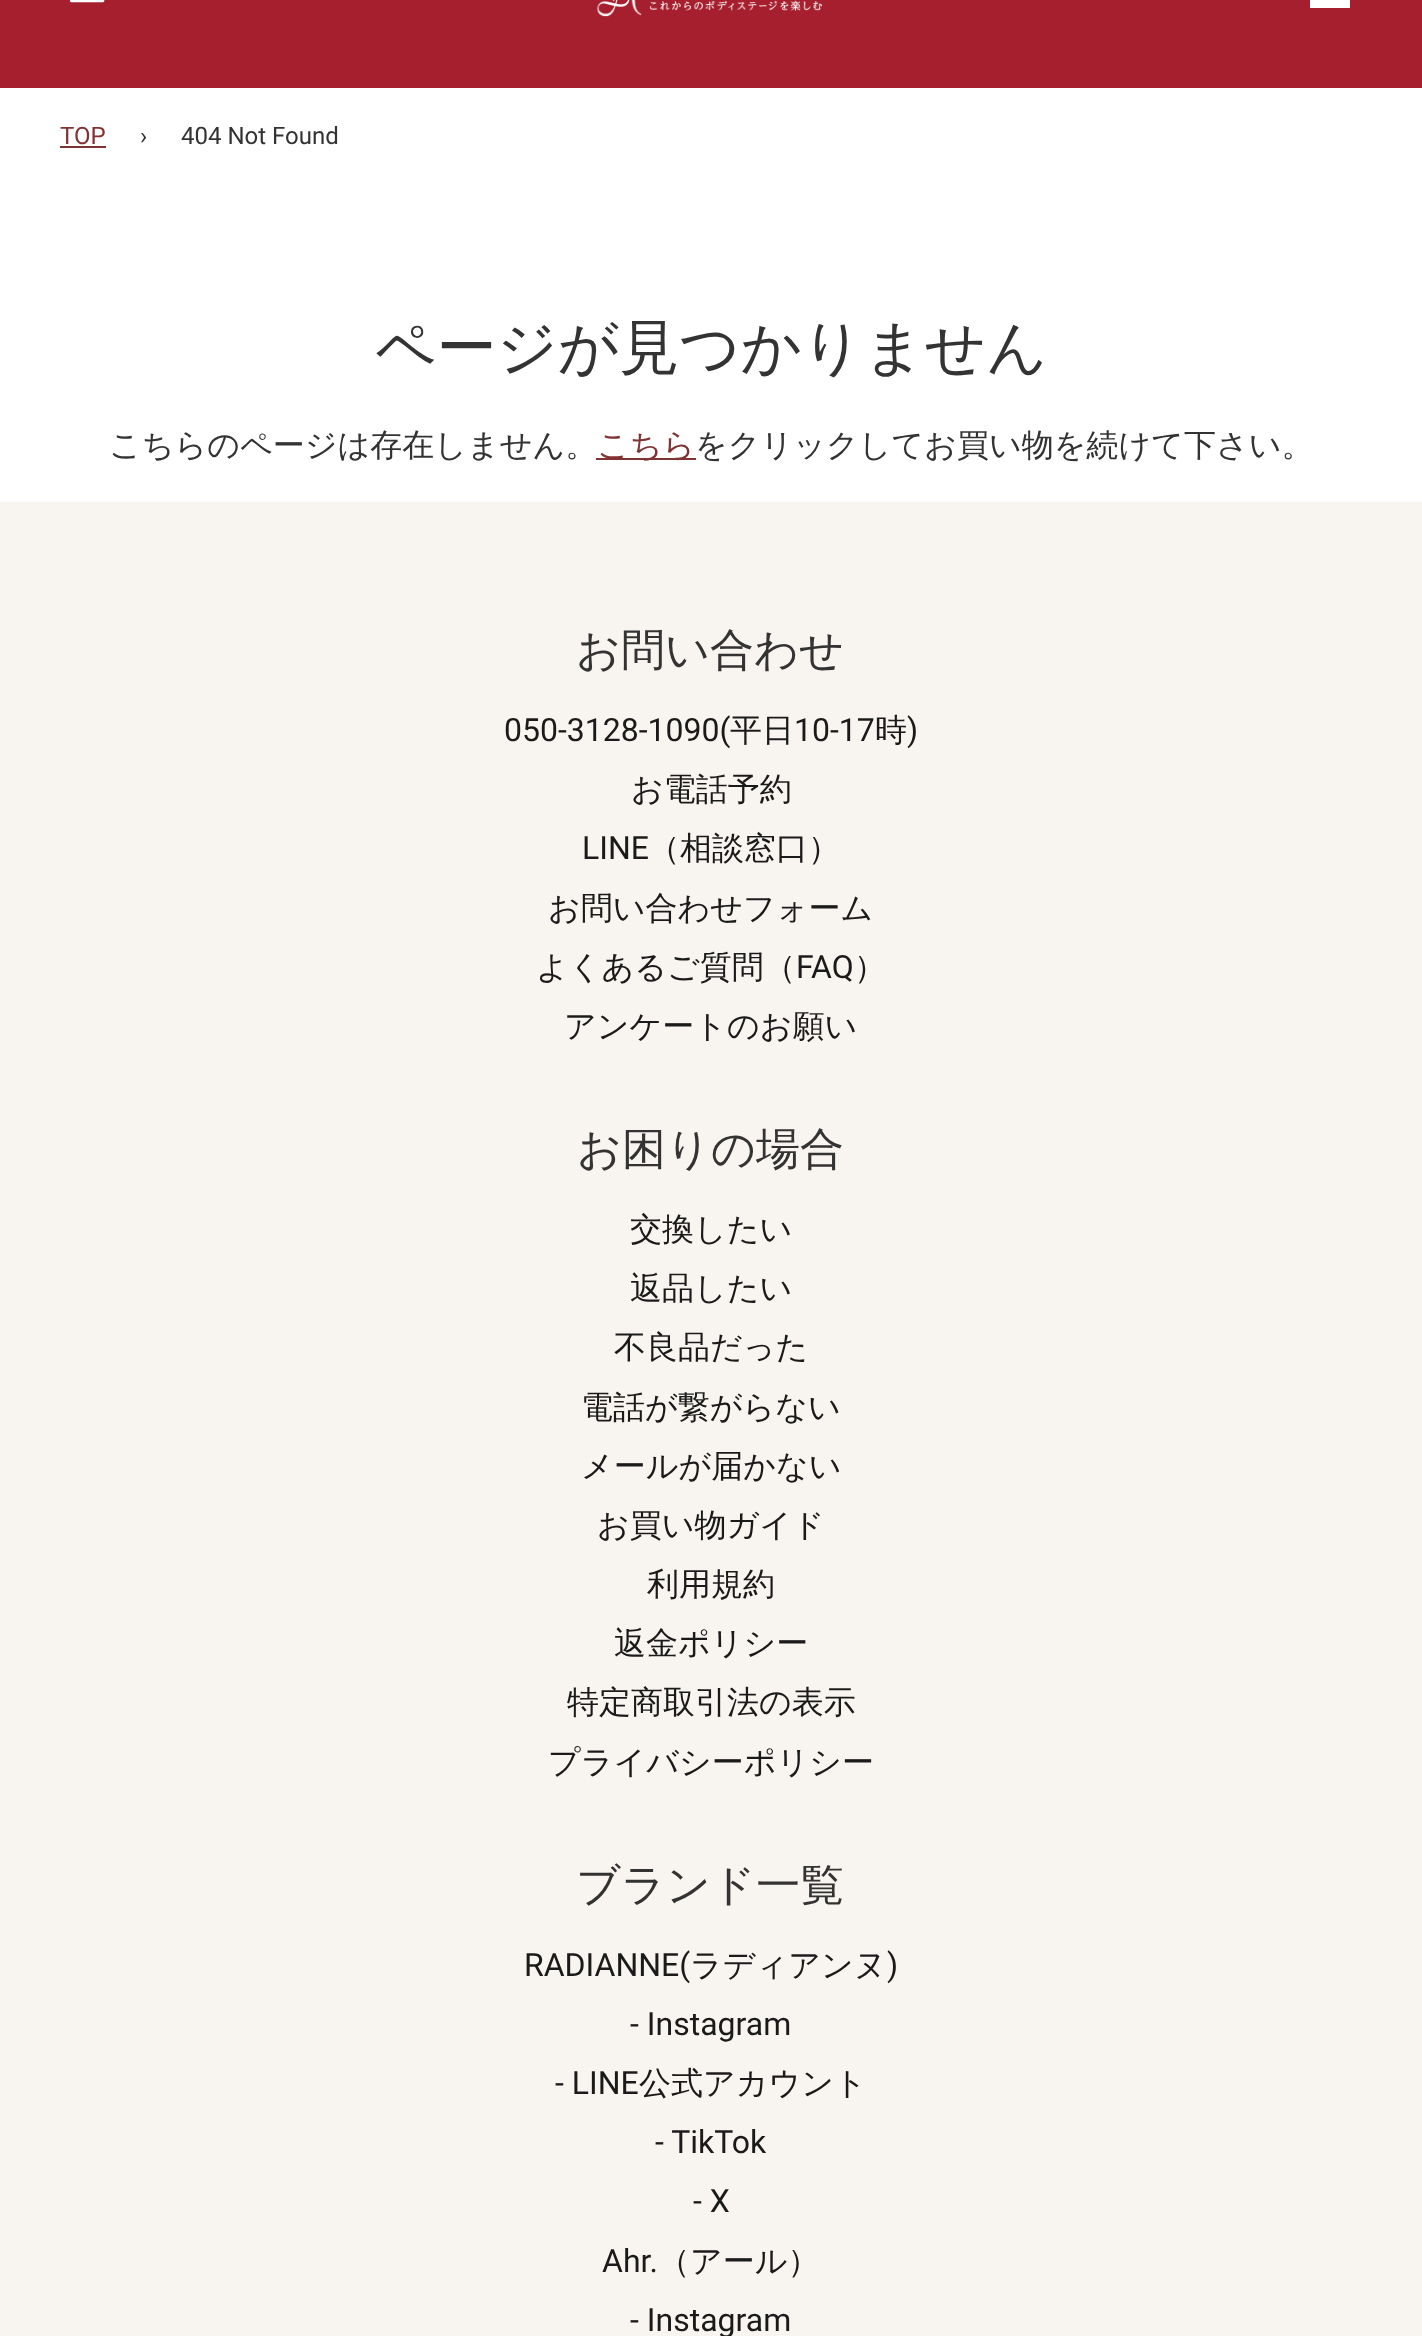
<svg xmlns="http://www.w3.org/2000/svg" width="1422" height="2336">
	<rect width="100%" height="100%" fill="#FFFFFF" />
	<rect x="0" y="0" width="1422" height="88" fill="#A61F2F" />
	<image x="70" y="0" width="35" height="3" href="assets/img1.png" />
	<image x="597" y="0" width="225" height="17" href="assets/img2.png" />
	<rect x="1310" y="0" width="40" height="8" fill="#FFFFFF" />
	<text x="60" y="144" font-family="Roboto" font-size="24" fill="#813232">TOP</text>
	<rect x="60" y="146" width="46" height="2" fill="#813232" />
	<g font-family="Roboto" font-size="24" fill="#333333">
		<text x="140" y="144">›</text>
		<text x="181" y="144">404 Not Found</text>
	</g>
	<text x="375" y="368" font-family="WenQuanYi Zen Hei" font-size="60" font-weight="500" fill="#333333">ページが見つかりません</text>
	<text x="109" y="456" font-family="WenQuanYi Zen Hei" font-size="32" font-weight="500" fill="#333333">こちらのページは存在しません。</text>
	<rect x="596" y="458" width="100" height="2" fill="#813232" />
	<text x="597" y="456" font-family="WenQuanYi Zen Hei" font-size="32" font-weight="500" fill="#813232">こちら</text>
	<text x="695" y="456" font-family="WenQuanYi Zen Hei" font-size="32" font-weight="500" fill="#333333">をクリックしてお買い物を続けて下さい。</text>
	<rect x="0" y="502" width="1422" height="1834" fill="#F8F4F0" />
	<text x="576" y="665" font-family="WenQuanYi Zen Hei" font-size="44" font-weight="500" fill="#333333">お問い合わせ</text>
	<text x="504" y="741" font-family="Roboto" font-size="32" fill="#1A1A1A">050-3128-1090(</text>
	<text x="730" y="741" font-family="WenQuanYi Zen Hei" font-size="32" font-weight="500" fill="#1A1A1A">平日</text>
	<text x="794" y="741" font-family="Roboto" font-size="32" fill="#1A1A1A">10-17</text>
	<text x="875" y="741" font-family="WenQuanYi Zen Hei" font-size="32" font-weight="500" fill="#1A1A1A">時</text>
	<text x="907" y="741" font-family="Roboto" font-size="32" fill="#1A1A1A">)</text>
	<text x="631" y="800" font-family="WenQuanYi Zen Hei" font-size="32" font-weight="500" fill="#1A1A1A">お電話予約</text>
	<text x="582" y="859" font-family="Roboto" font-size="32" fill="#1A1A1A">LINE</text>
	<g font-family="WenQuanYi Zen Hei" font-size="32" font-weight="500" fill="#1A1A1A">
		<text x="648" y="859">（相談窓口）</text>
		<text x="548" y="919">お問い合わせフォーム</text>
		<text x="536" y="978">よくあるご質問（</text>
	</g>
	<text x="796" y="978" font-family="Roboto" font-size="32" fill="#1A1A1A">FAQ</text>
	<g font-family="WenQuanYi Zen Hei" font-size="32" font-weight="500" fill="#1A1A1A">
		<text x="854" y="978">）</text>
		<text x="564" y="1037">アンケートのお願い</text>
	</g>
	<text x="577" y="1164" font-family="WenQuanYi Zen Hei" font-size="44" font-weight="500" fill="#333333">お困りの場合</text>
	<g font-family="WenQuanYi Zen Hei" font-size="32" font-weight="500" fill="#1A1A1A">
		<text x="630" y="1240">交換したい</text>
		<text x="630" y="1299">返品したい</text>
		<text x="614" y="1358">不良品だった</text>
		<text x="581" y="1418">電話が繋がらない</text>
		<text x="581" y="1477">メールが届かない</text>
		<text x="597" y="1536">お買い物ガイド</text>
		<text x="647" y="1595">利用規約</text>
		<text x="614" y="1654">返金ポリシー</text>
		<text x="567" y="1713">特定商取引法の表示</text>
		<text x="548" y="1773">プライバシーポリシー</text>
	</g>
	<text x="576" y="1900" font-family="WenQuanYi Zen Hei" font-size="44" font-weight="500" fill="#333333">ブランド一覧</text>
	<text x="524" y="1976" font-family="Roboto" font-size="32" fill="#1A1A1A">RADIANNE(</text>
	<text x="690" y="1976" font-family="WenQuanYi Zen Hei" font-size="32" font-weight="500" fill="#1A1A1A">ラディアンヌ</text>
	<g font-family="Roboto" font-size="32" fill="#1A1A1A">
		<text x="887" y="1976">)</text>
		<text x="630" y="2035">- Instagram</text>
		<text x="555" y="2094">- LINE</text>
	</g>
	<text x="639" y="2094" font-family="WenQuanYi Zen Hei" font-size="32" font-weight="500" fill="#1A1A1A">公式アカウント</text>
	<g font-family="Roboto" font-size="32" fill="#1A1A1A">
		<text x="655" y="2153">- TikTok</text>
		<text x="693" y="2212">- X</text>
		<text x="602" y="2272">Ahr.</text>
	</g>
	<text x="658" y="2272" font-family="WenQuanYi Zen Hei" font-size="32" font-weight="500" fill="#1A1A1A">（アール）</text>
	<text x="630" y="2331" font-family="Roboto" font-size="32" fill="#1A1A1A">- Instagram</text>
</svg>
